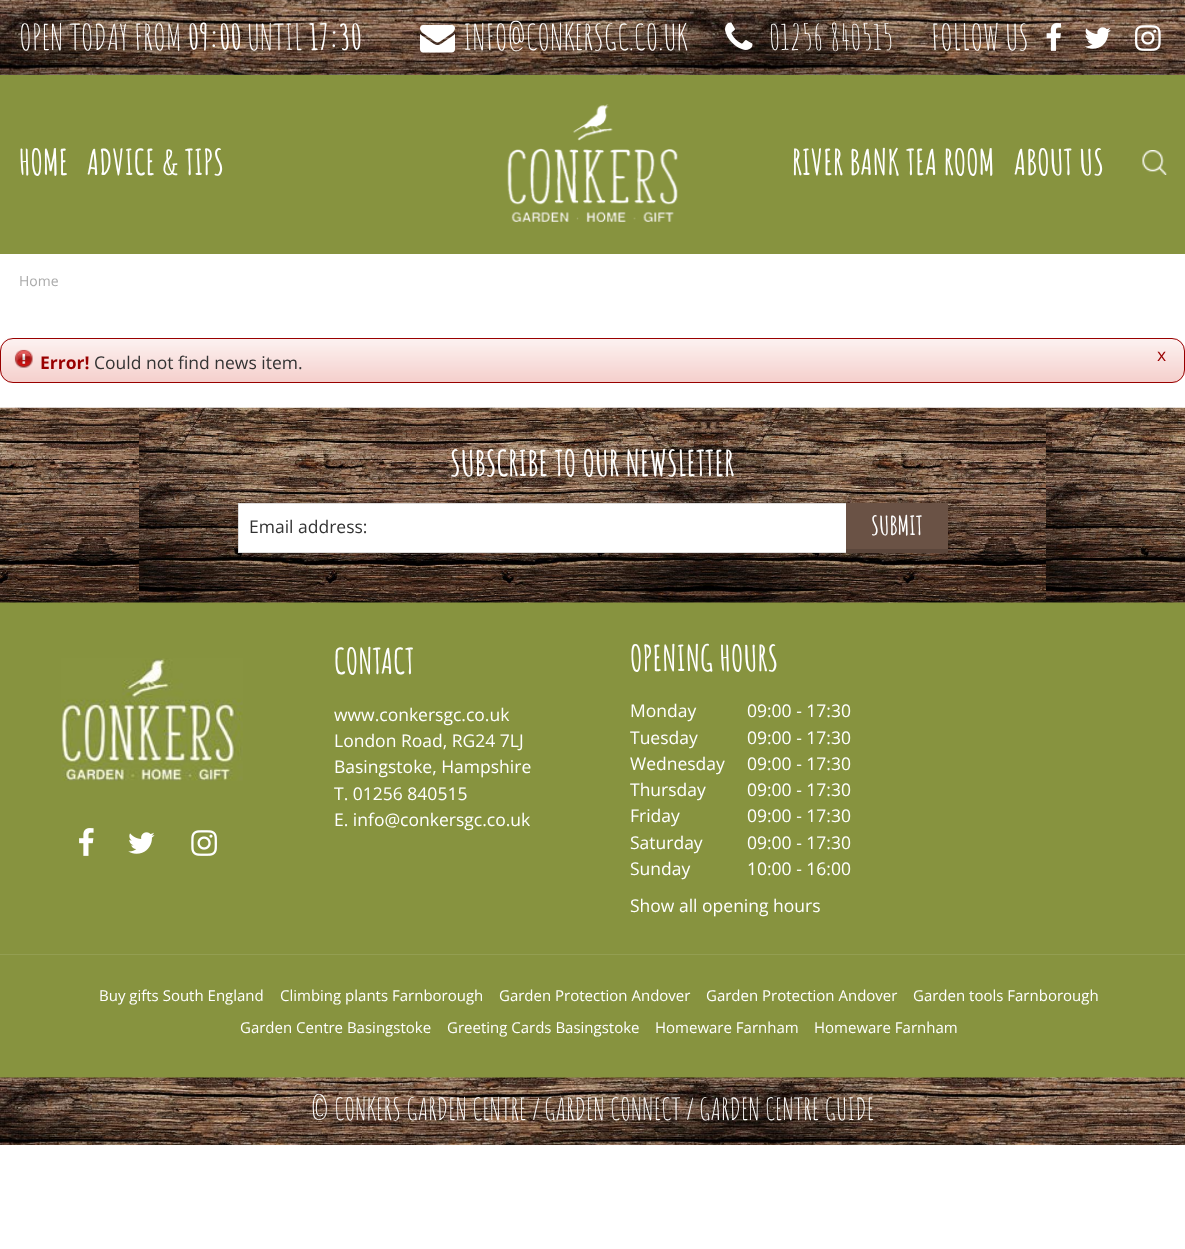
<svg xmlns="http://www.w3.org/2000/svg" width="1185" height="1249">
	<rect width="100%" height="100%" fill="#FFFFFF" />
	<image x="0" y="0" width="1185" height="75" href="assets/img1.png" />
	<text x="19" y="50" font-family="Amatic SC" font-size="35" fill="#FFFFFF">OPEN TODAY FROM</text>
	<text x="188" y="50" font-family="Amatic SC" font-size="35" font-weight="700" fill="#FFFFFF">09:00</text>
	<text x="247" y="50" font-family="Amatic SC" font-size="35" fill="#FFFFFF">UNTIL</text>
	<text x="309" y="50" font-family="Amatic SC" font-size="35" font-weight="700" fill="#FFFFFF">17:30</text>
	<image x="420" y="25" width="35" height="28" href="assets/img2.png" />
	<text x="463" y="50" font-family="Amatic SC" font-size="35" fill="#FFFFFF">INFO@CONKERSGC.CO.UK</text>
	<image x="725" y="22" width="28" height="28" href="assets/img3.png" />
	<g font-family="Amatic SC" font-size="35" fill="#FFFFFF">
		<text x="769" y="50">01256 840515</text>
		<text x="931" y="50">FOLLOW US</text>
	</g>
	<image x="1046" y="23" width="16" height="28" href="assets/img4.png" />
	<image x="1084" y="27" width="27" height="22" href="assets/img5.png" />
	<image x="1135" y="25" width="26" height="26" href="assets/img6.png" />
	<rect x="0" y="75" width="1185" height="179" fill="#87933F" />
	<image x="507" y="104" width="171" height="118" href="assets/img7.png" />
	<g font-family="Amatic SC" font-size="35" font-weight="700" fill="#FFFFFF">
		<text x="19" y="175">HOME</text>
		<text x="87" y="175">ADVICE &amp; TIPS</text>
		<text x="792" y="175">RIVER BANK TEA ROOM</text>
		<text x="1014" y="175">ABOUT US</text>
	</g>
	<image x="1142" y="150" width="25" height="25" href="assets/img8.png" />
	<image x="0" y="338" width="1185" height="45" href="assets/img9.png" />
	<rect x="0.5" y="338.5" width="1184" height="44" rx="12.5" fill="none" stroke="#990000" />
	<image x="14" y="349" width="19" height="19" href="assets/img10.png" />
	<text x="40" y="369" font-family="Open Sans" font-size="17.5" font-weight="700" fill="#990000">Error!</text>
	<text x="94" y="369" font-family="Open Sans" font-size="17.5" fill="#333333">Could not find news item.</text>
	<text x="1157" y="361" font-family="Open Sans" font-size="17.5" fill="#990000">x</text>
	<text x="19" y="286" font-family="Open Sans" font-size="14" fill="#AAAAAA">Home</text>
	<rect x="0" y="602" width="1185" height="476" fill="#87933F" />
	<image x="0" y="407" width="1185" height="196" href="assets/img11.png" />
	<text x="450" y="476" font-family="Amatic SC" font-size="35" font-weight="700" fill="#FFFFFF">SUBSCRIBE TO OUR NEWSLETTER</text>
	<rect x="239" y="504" width="607" height="48" fill="#FFFFFF" />
	<rect x="238.5" y="503.5" width="709" height="49" fill="none" stroke="#DDDDDD" />
	<text x="249" y="533" font-family="Open Sans" font-size="17.5" fill="#333333">Email address:</text>
	<rect x="846" y="503" width="102" height="46" fill="#6A5245" />
	<rect x="846" y="549" width="102" height="4" fill="#5B463B" />
	<text x="871" y="535" font-family="Amatic SC" font-size="26" font-weight="700" fill="#FFFFFF">SUBMIT</text>
	<image x="61" y="658" width="182" height="123" href="assets/img12.png" />
	<image x="79" y="828" width="15" height="28" href="assets/img13.png" />
	<image x="128" y="832" width="27" height="22" href="assets/img14.png" />
	<image x="191" y="830" width="26" height="26" href="assets/img15.png" />
	<text x="334" y="674" font-family="Amatic SC" font-size="35" font-weight="700" fill="#FFFFFF">CONTACT</text>
	<g font-family="Open Sans" font-size="17.5" fill="#FFFFFF">
		<text x="334" y="721">www.conkersgc.co.uk</text>
		<text x="334" y="747">London Road, RG24 7LJ</text>
		<text x="334" y="773">Basingstoke, Hampshire</text>
		<text x="334" y="800">T. 01256 840515</text>
		<text x="334" y="826">E. info@conkersgc.co.uk</text>
	</g>
	<text x="630" y="671" font-family="Amatic SC" font-size="35" font-weight="700" fill="#FFFFFF">OPENING HOURS</text>
	<g font-family="Open Sans" font-size="17.5" fill="#FFFFFF">
		<text x="630" y="717">Monday</text>
		<text x="747" y="717">09:00 - 17:30</text>
		<text x="630" y="744">Tuesday</text>
		<text x="747" y="744">09:00 - 17:30</text>
		<text x="630" y="770">Wednesday</text>
		<text x="747" y="770">09:00 - 17:30</text>
		<text x="630" y="796">Thursday</text>
		<text x="747" y="796">09:00 - 17:30</text>
		<text x="630" y="822">Friday</text>
		<text x="747" y="822">09:00 - 17:30</text>
		<text x="630" y="849">Saturday</text>
		<text x="747" y="849">09:00 - 17:30</text>
		<text x="630" y="875">Sunday</text>
		<text x="747" y="875">10:00 - 16:00</text>
		<text x="630" y="912">Show all opening hours</text>
	</g>
	<rect x="0" y="954" width="1185" height="1" fill="#939E52" />
	<g font-family="Open Sans" font-size="15" fill="#FFFFFF">
		<text x="99" y="1001">Buy gifts South England</text>
		<text x="280" y="1001">Climbing plants Farnborough</text>
		<text x="499" y="1001">Garden Protection Andover</text>
		<text x="706" y="1001">Garden Protection Andover</text>
		<text x="913" y="1001">Garden tools Farnborough</text>
		<text x="240" y="1033">Garden Centre Basingstoke</text>
		<text x="447" y="1033">Greeting Cards Basingstoke</text>
		<text x="655" y="1033">Homeware Farnham</text>
		<text x="814" y="1033">Homeware Farnham</text>
	</g>
	<image x="0" y="1077" width="1185" height="68" href="assets/img16.png" />
	<g font-family="Amatic SC" font-size="30" fill="#FFFFFF">
		<text x="311" y="1120">© CONKERS GARDEN CENTRE</text>
		<text x="531" y="1120">/</text>
		<text x="544" y="1120">GARDEN CONNECT</text>
		<text x="685" y="1120">/</text>
		<text x="699" y="1120">GARDEN CENTRE GUIDE</text>
	</g>
</svg>
